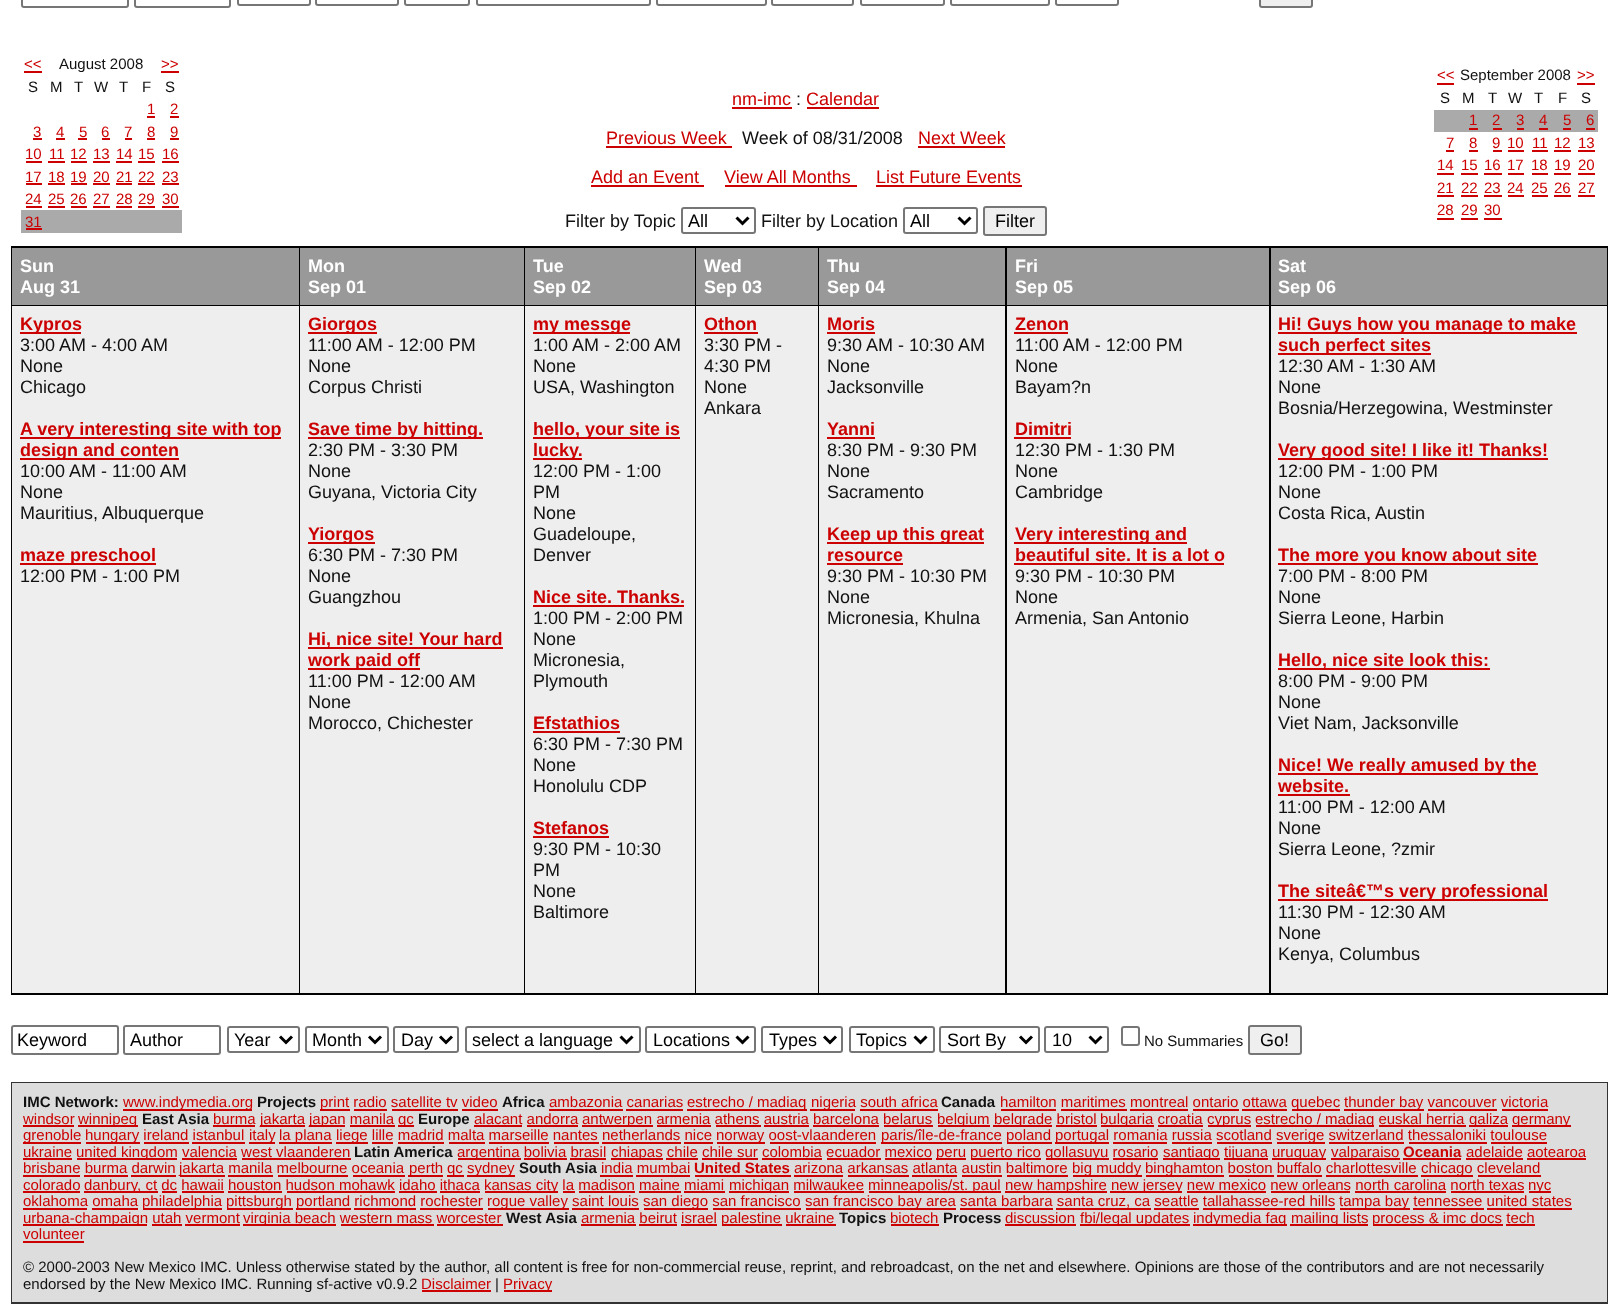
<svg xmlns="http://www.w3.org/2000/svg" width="1618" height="1313">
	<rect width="100%" height="100%" fill="#FFFFFF" />
	<rect x="22" y="-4" width="106" height="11" rx="2" fill="none" stroke="#767676" stroke-width="2" />
	<rect x="135" y="-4" width="95" height="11" rx="2" fill="none" stroke="#767676" stroke-width="2" />
	<rect x="238" y="-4" width="72" height="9" rx="2" fill="none" stroke="#767676" stroke-width="2" />
	<rect x="316" y="-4" width="82" height="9" rx="2" fill="none" stroke="#767676" stroke-width="2" />
	<rect x="405" y="-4" width="64" height="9" rx="2" fill="none" stroke="#767676" stroke-width="2" />
	<rect x="477" y="-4" width="173" height="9" rx="2" fill="none" stroke="#767676" stroke-width="2" />
	<rect x="657" y="-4" width="109" height="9" rx="2" fill="none" stroke="#767676" stroke-width="2" />
	<rect x="772" y="-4" width="81" height="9" rx="2" fill="none" stroke="#767676" stroke-width="2" />
	<rect x="861" y="-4" width="83" height="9" rx="2" fill="none" stroke="#767676" stroke-width="2" />
	<rect x="951" y="-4" width="98" height="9" rx="2" fill="none" stroke="#767676" stroke-width="2" />
	<rect x="1056" y="-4" width="62" height="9" rx="2" fill="none" stroke="#767676" stroke-width="2" />
	<rect x="1260" y="-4" width="52" height="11" rx="2" fill="#EFEFEF" stroke="#767676" stroke-width="2" />
	<text x="24" y="69" font-family="Liberation Sans" font-size="15" fill="#CC0000">&lt;&lt;</text>
	<rect x="24" y="71" width="18" height="2" fill="#CC0000" />
	<text x="59" y="69" font-family="Liberation Sans" font-size="15" fill="#111111">August 2008</text>
	<text x="161" y="69" font-family="Liberation Sans" font-size="15" fill="#CC0000">&gt;&gt;</text>
	<rect x="161" y="71" width="18" height="2" fill="#CC0000" />
	<g font-family="Liberation Sans" font-size="15" fill="#111111">
		<text x="28" y="92">S</text>
		<text x="50" y="92">M</text>
		<text x="74" y="92">T</text>
		<text x="94" y="92">W</text>
		<text x="119" y="92">T</text>
		<text x="142" y="92">F</text>
		<text x="165" y="92">S</text>
	</g>
	<text x="147" y="114" font-family="Liberation Sans" font-size="15" fill="#CC0000">1</text>
	<rect x="147" y="116" width="8" height="2" fill="#CC0000" />
	<text x="170" y="114" font-family="Liberation Sans" font-size="15" fill="#CC0000">2</text>
	<rect x="170" y="116" width="9" height="2" fill="#CC0000" />
	<text x="33" y="137" font-family="Liberation Sans" font-size="15" fill="#CC0000">3</text>
	<rect x="33" y="138" width="9" height="2" fill="#CC0000" />
	<text x="56" y="137" font-family="Liberation Sans" font-size="15" fill="#CC0000">4</text>
	<rect x="56" y="138" width="9" height="2" fill="#CC0000" />
	<text x="79" y="137" font-family="Liberation Sans" font-size="15" fill="#CC0000">5</text>
	<rect x="78" y="138" width="9" height="2" fill="#CC0000" />
	<text x="101" y="137" font-family="Liberation Sans" font-size="15" fill="#CC0000">6</text>
	<rect x="102" y="138" width="8" height="2" fill="#CC0000" />
	<text x="124" y="137" font-family="Liberation Sans" font-size="15" fill="#CC0000">7</text>
	<rect x="125" y="138" width="7" height="2" fill="#CC0000" />
	<text x="147" y="137" font-family="Liberation Sans" font-size="15" fill="#CC0000">8</text>
	<rect x="147" y="138" width="8" height="2" fill="#CC0000" />
	<text x="170" y="137" font-family="Liberation Sans" font-size="15" fill="#CC0000">9</text>
	<rect x="170" y="138" width="9" height="2" fill="#CC0000" />
	<text x="25" y="159" font-family="Liberation Sans" font-size="15" fill="#CC0000">10</text>
	<rect x="26" y="161" width="16" height="2" fill="#CC0000" />
	<text x="49" y="159" font-family="Liberation Sans" font-size="15" fill="#CC0000">11</text>
	<rect x="48" y="161" width="17" height="2" fill="#CC0000" />
	<text x="70" y="159" font-family="Liberation Sans" font-size="15" fill="#CC0000">12</text>
	<rect x="71" y="161" width="16" height="2" fill="#CC0000" />
	<text x="93" y="159" font-family="Liberation Sans" font-size="15" fill="#CC0000">13</text>
	<rect x="93" y="161" width="17" height="2" fill="#CC0000" />
	<text x="116" y="159" font-family="Liberation Sans" font-size="15" fill="#CC0000">14</text>
	<rect x="116" y="161" width="16" height="2" fill="#CC0000" />
	<text x="138" y="159" font-family="Liberation Sans" font-size="15" fill="#CC0000">15</text>
	<rect x="138" y="161" width="17" height="2" fill="#CC0000" />
	<text x="162" y="159" font-family="Liberation Sans" font-size="15" fill="#CC0000">16</text>
	<rect x="162" y="161" width="17" height="2" fill="#CC0000" />
	<text x="25" y="182" font-family="Liberation Sans" font-size="15" fill="#CC0000">17</text>
	<rect x="26" y="183" width="16" height="2" fill="#CC0000" />
	<text x="48" y="182" font-family="Liberation Sans" font-size="15" fill="#CC0000">18</text>
	<rect x="48" y="183" width="17" height="2" fill="#CC0000" />
	<text x="70" y="182" font-family="Liberation Sans" font-size="15" fill="#CC0000">19</text>
	<rect x="71" y="183" width="16" height="2" fill="#CC0000" />
	<text x="93" y="182" font-family="Liberation Sans" font-size="15" fill="#CC0000">20</text>
	<rect x="93" y="183" width="17" height="2" fill="#CC0000" />
	<text x="116" y="182" font-family="Liberation Sans" font-size="15" fill="#CC0000">21</text>
	<rect x="116" y="183" width="16" height="2" fill="#CC0000" />
	<text x="138" y="182" font-family="Liberation Sans" font-size="15" fill="#CC0000">22</text>
	<rect x="138" y="183" width="17" height="2" fill="#CC0000" />
	<text x="162" y="182" font-family="Liberation Sans" font-size="15" fill="#CC0000">23</text>
	<rect x="162" y="183" width="17" height="2" fill="#CC0000" />
	<text x="25" y="204" font-family="Liberation Sans" font-size="15" fill="#CC0000">24</text>
	<rect x="26" y="206" width="16" height="2" fill="#CC0000" />
	<text x="48" y="204" font-family="Liberation Sans" font-size="15" fill="#CC0000">25</text>
	<rect x="48" y="206" width="17" height="2" fill="#CC0000" />
	<text x="70" y="204" font-family="Liberation Sans" font-size="15" fill="#CC0000">26</text>
	<rect x="71" y="206" width="16" height="2" fill="#CC0000" />
	<text x="93" y="204" font-family="Liberation Sans" font-size="15" fill="#CC0000">27</text>
	<rect x="93" y="206" width="17" height="2" fill="#CC0000" />
	<text x="116" y="204" font-family="Liberation Sans" font-size="15" fill="#CC0000">28</text>
	<rect x="116" y="206" width="16" height="2" fill="#CC0000" />
	<text x="138" y="204" font-family="Liberation Sans" font-size="15" fill="#CC0000">29</text>
	<rect x="138" y="206" width="17" height="2" fill="#CC0000" />
	<text x="162" y="204" font-family="Liberation Sans" font-size="15" fill="#CC0000">30</text>
	<rect x="162" y="206" width="17" height="2" fill="#CC0000" />
	<rect x="21" y="210" width="161" height="23" fill="#AAAAAA" />
	<text x="25" y="227" font-family="Liberation Sans" font-size="15" fill="#CC0000">31</text>
	<rect x="26" y="228" width="16" height="2" fill="#CC0000" />
	<text x="732" y="105" font-family="Liberation Sans" font-size="18" fill="#CC0000">nm-imc</text>
	<rect x="732" y="107" width="60" height="2" fill="#CC0000" />
	<text x="796" y="105" font-family="Liberation Sans" font-size="18" fill="#111111">:</text>
	<text x="806" y="105" font-family="Liberation Sans" font-size="18" fill="#CC0000">Calendar</text>
	<rect x="807" y="107" width="72" height="2" fill="#CC0000" />
	<text x="606" y="144" font-family="Liberation Sans" font-size="18" fill="#CC0000">Previous Week</text>
	<rect x="606" y="146" width="126" height="2" fill="#CC0000" />
	<text x="742" y="144" font-family="Liberation Sans" font-size="18" fill="#111111">Week of 08/31/2008</text>
	<text x="918" y="144" font-family="Liberation Sans" font-size="18" fill="#CC0000">Next Week</text>
	<rect x="918" y="146" width="87" height="2" fill="#CC0000" />
	<text x="591" y="183" font-family="Liberation Sans" font-size="18" fill="#CC0000">Add an Event</text>
	<rect x="591" y="185" width="113" height="2" fill="#CC0000" />
	<text x="724" y="183" font-family="Liberation Sans" font-size="18" fill="#CC0000">View All Months</text>
	<rect x="725" y="185" width="132" height="2" fill="#CC0000" />
	<text x="876" y="183" font-family="Liberation Sans" font-size="18" fill="#CC0000">List Future Events</text>
	<rect x="876" y="185" width="146" height="2" fill="#CC0000" />
	<text x="565" y="227" font-family="Liberation Sans" font-size="18" fill="#111111">Filter by Topic</text>
	<rect x="682" y="208" width="73" height="25" rx="2" fill="none" stroke="#767676" stroke-width="2" />
	<path d="M736.5 217.5L742.5 223.5L748.5 217.5" fill="none" stroke="#000000" stroke-width="3" />
	<text x="688" y="227" font-family="Liberation Sans" font-size="18" fill="#000000">All</text>
	<text x="761" y="227" font-family="Liberation Sans" font-size="18" fill="#111111">Filter by Location</text>
	<rect x="904" y="208" width="73" height="25" rx="2" fill="none" stroke="#767676" stroke-width="2" />
	<path d="M958.5 217.5L964.5 223.5L970.5 217.5" fill="none" stroke="#000000" stroke-width="3" />
	<text x="910" y="227" font-family="Liberation Sans" font-size="18" fill="#000000">All</text>
	<rect x="984" y="207" width="62" height="28" rx="2" fill="#EFEFEF" stroke="#767676" stroke-width="2" />
	<text x="995" y="227" font-family="Liberation Sans" font-size="18" fill="#000000">Filter</text>
	<text x="1437" y="80" font-family="Liberation Sans" font-size="15" fill="#CC0000">&lt;&lt;</text>
	<rect x="1437" y="83" width="17" height="2" fill="#CC0000" />
	<text x="1460" y="80" font-family="Liberation Sans" font-size="15" fill="#111111">September 2008</text>
	<text x="1577" y="80" font-family="Liberation Sans" font-size="15" fill="#CC0000">&gt;&gt;</text>
	<rect x="1577" y="83" width="18" height="2" fill="#CC0000" />
	<g font-family="Liberation Sans" font-size="15" fill="#111111">
		<text x="1440" y="103">S</text>
		<text x="1462" y="103">M</text>
		<text x="1488" y="103">T</text>
		<text x="1508" y="103">W</text>
		<text x="1534" y="103">T</text>
		<text x="1558" y="103">F</text>
		<text x="1581" y="103">S</text>
	</g>
	<rect x="1434" y="110" width="164" height="22" fill="#AAAAAA" />
	<text x="1469" y="125" font-family="Liberation Sans" font-size="15" fill="#CC0000">1</text>
	<rect x="1469" y="128" width="9" height="2" fill="#CC0000" />
	<text x="1492" y="125" font-family="Liberation Sans" font-size="15" fill="#CC0000">2</text>
	<rect x="1493" y="128" width="9" height="2" fill="#CC0000" />
	<text x="1516" y="125" font-family="Liberation Sans" font-size="15" fill="#CC0000">3</text>
	<rect x="1517" y="128" width="7" height="2" fill="#CC0000" />
	<text x="1539" y="125" font-family="Liberation Sans" font-size="15" fill="#CC0000">4</text>
	<rect x="1539" y="128" width="9" height="2" fill="#CC0000" />
	<text x="1563" y="125" font-family="Liberation Sans" font-size="15" fill="#CC0000">5</text>
	<rect x="1563" y="128" width="8" height="2" fill="#CC0000" />
	<text x="1586" y="125" font-family="Liberation Sans" font-size="15" fill="#CC0000">6</text>
	<rect x="1586" y="128" width="9" height="2" fill="#CC0000" />
	<text x="1446" y="148" font-family="Liberation Sans" font-size="15" fill="#CC0000">7</text>
	<rect x="1446" y="150" width="8" height="2" fill="#CC0000" />
	<text x="1469" y="148" font-family="Liberation Sans" font-size="15" fill="#CC0000">8</text>
	<rect x="1469" y="150" width="9" height="2" fill="#CC0000" />
	<text x="1492" y="148" font-family="Liberation Sans" font-size="15" fill="#CC0000">9</text>
	<rect x="1493" y="150" width="9" height="2" fill="#CC0000" />
	<text x="1507" y="148" font-family="Liberation Sans" font-size="15" fill="#CC0000">10</text>
	<rect x="1508" y="150" width="16" height="2" fill="#CC0000" />
	<text x="1532" y="148" font-family="Liberation Sans" font-size="15" fill="#CC0000">11</text>
	<rect x="1532" y="150" width="16" height="2" fill="#CC0000" />
	<text x="1554" y="148" font-family="Liberation Sans" font-size="15" fill="#CC0000">12</text>
	<rect x="1554" y="150" width="17" height="2" fill="#CC0000" />
	<text x="1578" y="148" font-family="Liberation Sans" font-size="15" fill="#CC0000">13</text>
	<rect x="1578" y="150" width="17" height="2" fill="#CC0000" />
	<text x="1437" y="170" font-family="Liberation Sans" font-size="15" fill="#CC0000">14</text>
	<rect x="1437" y="173" width="17" height="2" fill="#CC0000" />
	<text x="1461" y="170" font-family="Liberation Sans" font-size="15" fill="#CC0000">15</text>
	<rect x="1461" y="173" width="17" height="2" fill="#CC0000" />
	<text x="1484" y="170" font-family="Liberation Sans" font-size="15" fill="#CC0000">16</text>
	<rect x="1484" y="173" width="18" height="2" fill="#CC0000" />
	<text x="1507" y="170" font-family="Liberation Sans" font-size="15" fill="#CC0000">17</text>
	<rect x="1508" y="173" width="16" height="2" fill="#CC0000" />
	<text x="1531" y="170" font-family="Liberation Sans" font-size="15" fill="#CC0000">18</text>
	<rect x="1532" y="173" width="16" height="2" fill="#CC0000" />
	<text x="1554" y="170" font-family="Liberation Sans" font-size="15" fill="#CC0000">19</text>
	<rect x="1554" y="173" width="17" height="2" fill="#CC0000" />
	<text x="1578" y="170" font-family="Liberation Sans" font-size="15" fill="#CC0000">20</text>
	<rect x="1578" y="173" width="17" height="2" fill="#CC0000" />
	<text x="1437" y="193" font-family="Liberation Sans" font-size="15" fill="#CC0000">21</text>
	<rect x="1437" y="195" width="17" height="2" fill="#CC0000" />
	<text x="1461" y="193" font-family="Liberation Sans" font-size="15" fill="#CC0000">22</text>
	<rect x="1461" y="195" width="17" height="2" fill="#CC0000" />
	<text x="1484" y="193" font-family="Liberation Sans" font-size="15" fill="#CC0000">23</text>
	<rect x="1484" y="195" width="18" height="2" fill="#CC0000" />
	<text x="1507" y="193" font-family="Liberation Sans" font-size="15" fill="#CC0000">24</text>
	<rect x="1508" y="195" width="16" height="2" fill="#CC0000" />
	<text x="1531" y="193" font-family="Liberation Sans" font-size="15" fill="#CC0000">25</text>
	<rect x="1532" y="195" width="16" height="2" fill="#CC0000" />
	<text x="1554" y="193" font-family="Liberation Sans" font-size="15" fill="#CC0000">26</text>
	<rect x="1554" y="195" width="17" height="2" fill="#CC0000" />
	<text x="1578" y="193" font-family="Liberation Sans" font-size="15" fill="#CC0000">27</text>
	<rect x="1578" y="195" width="17" height="2" fill="#CC0000" />
	<text x="1437" y="215" font-family="Liberation Sans" font-size="15" fill="#CC0000">28</text>
	<rect x="1437" y="218" width="17" height="2" fill="#CC0000" />
	<text x="1461" y="215" font-family="Liberation Sans" font-size="15" fill="#CC0000">29</text>
	<rect x="1461" y="218" width="17" height="2" fill="#CC0000" />
	<text x="1484" y="215" font-family="Liberation Sans" font-size="15" fill="#CC0000">30</text>
	<rect x="1484" y="218" width="18" height="2" fill="#CC0000" />
	<rect x="11" y="246" width="1597" height="749" fill="#000000" />
	<rect x="12" y="248" width="287" height="57" fill="#999999" />
	<g font-family="Liberation Sans" font-size="18" font-weight="700" fill="#FFFFFF">
		<text x="20" y="272">Sun</text>
		<text x="20" y="293">Aug 31</text>
	</g>
	<rect x="300" y="248" width="224" height="57" fill="#999999" />
	<g font-family="Liberation Sans" font-size="18" font-weight="700" fill="#FFFFFF">
		<text x="308" y="272">Mon</text>
		<text x="308" y="293">Sep 01</text>
	</g>
	<rect x="525" y="248" width="170" height="57" fill="#999999" />
	<g font-family="Liberation Sans" font-size="18" font-weight="700" fill="#FFFFFF">
		<text x="533" y="272">Tue</text>
		<text x="533" y="293">Sep 02</text>
	</g>
	<rect x="696" y="248" width="122" height="57" fill="#999999" />
	<g font-family="Liberation Sans" font-size="18" font-weight="700" fill="#FFFFFF">
		<text x="704" y="272">Wed</text>
		<text x="704" y="293">Sep 03</text>
	</g>
	<rect x="819" y="248" width="186" height="57" fill="#999999" />
	<g font-family="Liberation Sans" font-size="18" font-weight="700" fill="#FFFFFF">
		<text x="827" y="272">Thu</text>
		<text x="827" y="293">Sep 04</text>
	</g>
	<rect x="1007" y="248" width="262" height="57" fill="#999999" />
	<g font-family="Liberation Sans" font-size="18" font-weight="700" fill="#FFFFFF">
		<text x="1015" y="272">Fri</text>
		<text x="1015" y="293">Sep 05</text>
	</g>
	<rect x="1271" y="248" width="336" height="57" fill="#999999" />
	<g font-family="Liberation Sans" font-size="18" font-weight="700" fill="#FFFFFF">
		<text x="1278" y="272">Sat</text>
		<text x="1278" y="293">Sep 06</text>
	</g>
	<rect x="12" y="306" width="287" height="687" fill="#EEEEEE" />
	<rect x="20" y="332" width="61" height="2" fill="#CC0000" />
	<text x="20" y="330" font-family="Liberation Sans" font-size="18" font-weight="700" fill="#CC0000">Kypros</text>
	<g font-family="Liberation Sans" font-size="18" fill="#111111">
		<text x="20" y="351">3:00 AM - 4:00 AM</text>
		<text x="20" y="372">None</text>
		<text x="20" y="393">Chicago</text>
	</g>
	<rect x="20" y="437" width="261" height="2" fill="#CC0000" />
	<text x="20" y="435" font-family="Liberation Sans" font-size="18" font-weight="700" fill="#CC0000">A very interesting site with top</text>
	<rect x="20" y="458" width="159" height="2" fill="#CC0000" />
	<text x="20" y="456" font-family="Liberation Sans" font-size="18" font-weight="700" fill="#CC0000">design and conten</text>
	<g font-family="Liberation Sans" font-size="18" fill="#111111">
		<text x="20" y="477">10:00 AM - 11:00 AM</text>
		<text x="20" y="498">None</text>
		<text x="20" y="519">Mauritius, Albuquerque</text>
	</g>
	<rect x="20" y="563" width="136" height="2" fill="#CC0000" />
	<text x="20" y="561" font-family="Liberation Sans" font-size="18" font-weight="700" fill="#CC0000">maze preschool</text>
	<text x="20" y="582" font-family="Liberation Sans" font-size="18" fill="#111111">12:00 PM - 1:00 PM</text>
	<rect x="300" y="306" width="224" height="687" fill="#EEEEEE" />
	<rect x="308" y="332" width="69" height="2" fill="#CC0000" />
	<text x="308" y="330" font-family="Liberation Sans" font-size="18" font-weight="700" fill="#CC0000">Giorgos</text>
	<g font-family="Liberation Sans" font-size="18" fill="#111111">
		<text x="308" y="351">11:00 AM - 12:00 PM</text>
		<text x="308" y="372">None</text>
		<text x="308" y="393">Corpus Christi</text>
	</g>
	<rect x="308" y="437" width="175" height="2" fill="#CC0000" />
	<text x="308" y="435" font-family="Liberation Sans" font-size="18" font-weight="700" fill="#CC0000">Save time by hitting.</text>
	<g font-family="Liberation Sans" font-size="18" fill="#111111">
		<text x="308" y="456">2:30 PM - 3:30 PM</text>
		<text x="308" y="477">None</text>
		<text x="308" y="498">Guyana, Victoria City</text>
	</g>
	<rect x="308" y="542" width="67" height="2" fill="#CC0000" />
	<text x="308" y="540" font-family="Liberation Sans" font-size="18" font-weight="700" fill="#CC0000">Yiorgos</text>
	<g font-family="Liberation Sans" font-size="18" fill="#111111">
		<text x="308" y="561">6:30 PM - 7:30 PM</text>
		<text x="308" y="582">None</text>
		<text x="308" y="603">Guangzhou</text>
	</g>
	<rect x="308" y="647" width="195" height="2" fill="#CC0000" />
	<text x="308" y="645" font-family="Liberation Sans" font-size="18" font-weight="700" fill="#CC0000">Hi, nice site! Your hard</text>
	<rect x="308" y="668" width="112" height="2" fill="#CC0000" />
	<text x="308" y="666" font-family="Liberation Sans" font-size="18" font-weight="700" fill="#CC0000">work paid off</text>
	<g font-family="Liberation Sans" font-size="18" fill="#111111">
		<text x="308" y="687">11:00 PM - 12:00 AM</text>
		<text x="308" y="708">None</text>
		<text x="308" y="729">Morocco, Chichester</text>
	</g>
	<rect x="525" y="306" width="170" height="687" fill="#EEEEEE" />
	<rect x="533" y="332" width="97" height="2" fill="#CC0000" />
	<text x="533" y="330" font-family="Liberation Sans" font-size="18" font-weight="700" fill="#CC0000">my messge</text>
	<g font-family="Liberation Sans" font-size="18" fill="#111111">
		<text x="533" y="351">1:00 AM - 2:00 AM</text>
		<text x="533" y="372">None</text>
		<text x="533" y="393">USA, Washington</text>
	</g>
	<rect x="533" y="437" width="147" height="2" fill="#CC0000" />
	<text x="533" y="435" font-family="Liberation Sans" font-size="18" font-weight="700" fill="#CC0000">hello, your site is</text>
	<rect x="533" y="458" width="49" height="2" fill="#CC0000" />
	<text x="533" y="456" font-family="Liberation Sans" font-size="18" font-weight="700" fill="#CC0000">lucky.</text>
	<g font-family="Liberation Sans" font-size="18" fill="#111111">
		<text x="533" y="477">12:00 PM - 1:00</text>
		<text x="533" y="498">PM</text>
		<text x="533" y="519">None</text>
		<text x="533" y="540">Guadeloupe,</text>
		<text x="533" y="561">Denver</text>
	</g>
	<text x="533" y="603" font-family="Liberation Sans" font-size="18" font-weight="700" fill="#CC0000">Nice site. Thanks.</text>
	<rect x="533" y="605" width="151" height="2" fill="#CC0000" />
	<g font-family="Liberation Sans" font-size="18" fill="#111111">
		<text x="533" y="624">1:00 PM - 2:00 PM</text>
		<text x="533" y="645">None</text>
		<text x="533" y="666">Micronesia,</text>
		<text x="533" y="687">Plymouth</text>
	</g>
	<text x="533" y="729" font-family="Liberation Sans" font-size="18" font-weight="700" fill="#CC0000">Efstathios</text>
	<rect x="533" y="731" width="87" height="2" fill="#CC0000" />
	<g font-family="Liberation Sans" font-size="18" fill="#111111">
		<text x="533" y="750">6:30 PM - 7:30 PM</text>
		<text x="533" y="771">None</text>
		<text x="533" y="792">Honolulu CDP</text>
	</g>
	<text x="533" y="834" font-family="Liberation Sans" font-size="18" font-weight="700" fill="#CC0000">Stefanos</text>
	<rect x="533" y="836" width="76" height="2" fill="#CC0000" />
	<g font-family="Liberation Sans" font-size="18" fill="#111111">
		<text x="533" y="855">9:30 PM - 10:30</text>
		<text x="533" y="876">PM</text>
		<text x="533" y="897">None</text>
		<text x="533" y="918">Baltimore</text>
	</g>
	<rect x="696" y="306" width="122" height="687" fill="#EEEEEE" />
	<text x="704" y="330" font-family="Liberation Sans" font-size="18" font-weight="700" fill="#CC0000">Othon</text>
	<rect x="704" y="332" width="54" height="2" fill="#CC0000" />
	<g font-family="Liberation Sans" font-size="18" fill="#111111">
		<text x="704" y="351">3:30 PM -</text>
		<text x="704" y="372">4:30 PM</text>
		<text x="704" y="393">None</text>
		<text x="704" y="414">Ankara</text>
	</g>
	<rect x="819" y="306" width="186" height="687" fill="#EEEEEE" />
	<text x="827" y="330" font-family="Liberation Sans" font-size="18" font-weight="700" fill="#CC0000">Moris</text>
	<rect x="827" y="332" width="48" height="2" fill="#CC0000" />
	<g font-family="Liberation Sans" font-size="18" fill="#111111">
		<text x="827" y="351">9:30 AM - 10:30 AM</text>
		<text x="827" y="372">None</text>
		<text x="827" y="393">Jacksonville</text>
	</g>
	<text x="827" y="435" font-family="Liberation Sans" font-size="18" font-weight="700" fill="#CC0000">Yanni</text>
	<rect x="827" y="437" width="48" height="2" fill="#CC0000" />
	<g font-family="Liberation Sans" font-size="18" fill="#111111">
		<text x="827" y="456">8:30 PM - 9:30 PM</text>
		<text x="827" y="477">None</text>
		<text x="827" y="498">Sacramento</text>
	</g>
	<rect x="827" y="542" width="157" height="2" fill="#CC0000" />
	<g font-family="Liberation Sans" font-size="18" font-weight="700" fill="#CC0000">
		<text x="827" y="540">Keep up this great</text>
		<text x="827" y="561">resource</text>
	</g>
	<rect x="827" y="563" width="76" height="2" fill="#CC0000" />
	<g font-family="Liberation Sans" font-size="18" fill="#111111">
		<text x="827" y="582">9:30 PM - 10:30 PM</text>
		<text x="827" y="603">None</text>
		<text x="827" y="624">Micronesia, Khulna</text>
	</g>
	<rect x="1007" y="306" width="262" height="687" fill="#EEEEEE" />
	<text x="1015" y="330" font-family="Liberation Sans" font-size="18" font-weight="700" fill="#CC0000">Zenon</text>
	<rect x="1014" y="332" width="54" height="2" fill="#CC0000" />
	<g font-family="Liberation Sans" font-size="18" fill="#111111">
		<text x="1015" y="351">11:00 AM - 12:00 PM</text>
		<text x="1015" y="372">None</text>
		<text x="1015" y="393">Bayam?n</text>
	</g>
	<text x="1015" y="435" font-family="Liberation Sans" font-size="18" font-weight="700" fill="#CC0000">Dimitri</text>
	<rect x="1014" y="437" width="57" height="2" fill="#CC0000" />
	<g font-family="Liberation Sans" font-size="18" fill="#111111">
		<text x="1015" y="456">12:30 PM - 1:30 PM</text>
		<text x="1015" y="477">None</text>
		<text x="1015" y="498">Cambridge</text>
	</g>
	<rect x="1014" y="542" width="173" height="2" fill="#CC0000" />
	<g font-family="Liberation Sans" font-size="18" font-weight="700" fill="#CC0000">
		<text x="1015" y="540">Very interesting and</text>
		<text x="1015" y="561">beautiful site. It is a lot o</text>
	</g>
	<rect x="1014" y="563" width="210" height="2" fill="#CC0000" />
	<g font-family="Liberation Sans" font-size="18" fill="#111111">
		<text x="1015" y="582">9:30 PM - 10:30 PM</text>
		<text x="1015" y="603">None</text>
		<text x="1015" y="624">Armenia, San Antonio</text>
	</g>
	<rect x="1271" y="306" width="336" height="687" fill="#EEEEEE" />
	<rect x="1278" y="332" width="299" height="2" fill="#CC0000" />
	<text x="1278" y="330" font-family="Liberation Sans" font-size="18" font-weight="700" fill="#CC0000">Hi! Guys how you manage to make</text>
	<rect x="1278" y="353" width="153" height="2" fill="#CC0000" />
	<text x="1278" y="351" font-family="Liberation Sans" font-size="18" font-weight="700" fill="#CC0000">such perfect sites</text>
	<g font-family="Liberation Sans" font-size="18" fill="#111111">
		<text x="1278" y="372">12:30 AM - 1:30 AM</text>
		<text x="1278" y="393">None</text>
		<text x="1278" y="414">Bosnia/Herzegowina, Westminster</text>
	</g>
	<rect x="1278" y="458" width="270" height="2" fill="#CC0000" />
	<text x="1278" y="456" font-family="Liberation Sans" font-size="18" font-weight="700" fill="#CC0000">Very good site! I like it! Thanks!</text>
	<g font-family="Liberation Sans" font-size="18" fill="#111111">
		<text x="1278" y="477">12:00 PM - 1:00 PM</text>
		<text x="1278" y="498">None</text>
		<text x="1278" y="519">Costa Rica, Austin</text>
	</g>
	<rect x="1278" y="563" width="260" height="2" fill="#CC0000" />
	<text x="1278" y="561" font-family="Liberation Sans" font-size="18" font-weight="700" fill="#CC0000">The more you know about site</text>
	<g font-family="Liberation Sans" font-size="18" fill="#111111">
		<text x="1278" y="582">7:00 PM - 8:00 PM</text>
		<text x="1278" y="603">None</text>
		<text x="1278" y="624">Sierra Leone, Harbin</text>
	</g>
	<rect x="1278" y="668" width="212" height="2" fill="#CC0000" />
	<text x="1278" y="666" font-family="Liberation Sans" font-size="18" font-weight="700" fill="#CC0000">Hello, nice site look this:</text>
	<g font-family="Liberation Sans" font-size="18" fill="#111111">
		<text x="1278" y="687">8:00 PM - 9:00 PM</text>
		<text x="1278" y="708">None</text>
		<text x="1278" y="729">Viet Nam, Jacksonville</text>
	</g>
	<rect x="1278" y="773" width="260" height="2" fill="#CC0000" />
	<g font-family="Liberation Sans" font-size="18" font-weight="700" fill="#CC0000">
		<text x="1278" y="771">Nice! We really amused by the</text>
		<text x="1278" y="792">website.</text>
	</g>
	<rect x="1278" y="794" width="72" height="2" fill="#CC0000" />
	<g font-family="Liberation Sans" font-size="18" fill="#111111">
		<text x="1278" y="813">11:00 PM - 12:00 AM</text>
		<text x="1278" y="834">None</text>
		<text x="1278" y="855">Sierra Leone, ?zmir</text>
	</g>
	<rect x="1278" y="899" width="270" height="2" fill="#CC0000" />
	<text x="1278" y="897" font-family="Liberation Sans" font-size="18" font-weight="700" fill="#CC0000">The siteâ€™s very professional</text>
	<g font-family="Liberation Sans" font-size="18" fill="#111111">
		<text x="1278" y="918">11:30 PM - 12:30 AM</text>
		<text x="1278" y="939">None</text>
		<text x="1278" y="960">Kenya, Columbus</text>
	</g>
	<rect x="12" y="1026" width="106" height="28" rx="2" fill="none" stroke="#767676" stroke-width="2" />
	<text x="17" y="1046" font-family="Liberation Sans" font-size="18" fill="#000000">Keyword</text>
	<rect x="124" y="1026" width="96" height="28" rx="2" fill="none" stroke="#767676" stroke-width="2" />
	<text x="130" y="1046" font-family="Liberation Sans" font-size="18" fill="#000000">Author</text>
	<rect x="228" y="1027" width="71" height="25" rx="2" fill="none" stroke="#767676" stroke-width="2" />
	<path d="M280 1036.5L286 1042.5L292 1036.5" fill="none" stroke="#000000" stroke-width="3" />
	<text x="234" y="1046" font-family="Liberation Sans" font-size="18" fill="#000000">Year</text>
	<rect x="306" y="1027" width="82" height="25" rx="2" fill="none" stroke="#767676" stroke-width="2" />
	<path d="M369 1036.5L375 1042.5L381 1036.5" fill="none" stroke="#000000" stroke-width="3" />
	<text x="312" y="1046" font-family="Liberation Sans" font-size="18" fill="#000000">Month</text>
	<rect x="394" y="1027" width="64" height="25" rx="2" fill="none" stroke="#767676" stroke-width="2" />
	<path d="M440 1036.5L446 1042.5L452 1036.5" fill="none" stroke="#000000" stroke-width="3" />
	<text x="401" y="1046" font-family="Liberation Sans" font-size="18" fill="#000000">Day</text>
	<rect x="466" y="1027" width="174" height="25" rx="2" fill="none" stroke="#767676" stroke-width="2" />
	<path d="M620.5 1036.5L626.5 1042.5L632.5 1036.5" fill="none" stroke="#000000" stroke-width="3" />
	<text x="472" y="1046" font-family="Liberation Sans" font-size="18" fill="#000000">select a language</text>
	<rect x="646" y="1027" width="109" height="25" rx="2" fill="none" stroke="#767676" stroke-width="2" />
	<path d="M736.5 1036.5L742.5 1042.5L748.5 1036.5" fill="none" stroke="#000000" stroke-width="3" />
	<text x="653" y="1046" font-family="Liberation Sans" font-size="18" fill="#000000">Locations</text>
	<rect x="762" y="1027" width="80" height="25" rx="2" fill="none" stroke="#767676" stroke-width="2" />
	<path d="M824 1036.5L830 1042.5L836 1036.5" fill="none" stroke="#000000" stroke-width="3" />
	<text x="769" y="1046" font-family="Liberation Sans" font-size="18" fill="#000000">Types</text>
	<rect x="850" y="1027" width="84" height="25" rx="2" fill="none" stroke="#767676" stroke-width="2" />
	<path d="M914.5 1036.5L920.5 1042.5L926.5 1036.5" fill="none" stroke="#000000" stroke-width="3" />
	<text x="856" y="1046" font-family="Liberation Sans" font-size="18" fill="#000000">Topics</text>
	<rect x="940" y="1027" width="99" height="25" rx="2" fill="none" stroke="#767676" stroke-width="2" />
	<path d="M1020 1036.5L1026 1042.5L1032 1036.5" fill="none" stroke="#000000" stroke-width="3" />
	<text x="947" y="1046" font-family="Liberation Sans" font-size="18" fill="#000000">Sort By</text>
	<rect x="1045" y="1027" width="63" height="25" rx="2" fill="none" stroke="#767676" stroke-width="2" />
	<path d="M1089.5 1036.5L1095.5 1042.5L1101.5 1036.5" fill="none" stroke="#000000" stroke-width="3" />
	<text x="1052" y="1046" font-family="Liberation Sans" font-size="18" fill="#000000">10</text>
	<rect x="1122" y="1027" width="17" height="18" rx="2" fill="none" stroke="#767676" stroke-width="2" />
	<text x="1144" y="1046" font-family="Liberation Sans" font-size="15" fill="#111111">No Summaries</text>
	<rect x="1249" y="1026" width="52" height="28" rx="2" fill="#EFEFEF" stroke="#767676" stroke-width="2" />
	<text x="1260" y="1046" font-family="Liberation Sans" font-size="18" fill="#000000">Go!</text>
	<rect x="11" y="1082" width="1597" height="222" fill="#333333" />
	<rect x="12" y="1083" width="1595" height="219" fill="#DDDDDD" />
	<text x="23" y="1107" font-family="Liberation Sans" font-size="15" font-weight="700" fill="#111111">IMC Network:</text>
	<rect x="123" y="1109" width="129" height="2" fill="#CC0000" />
	<text x="123" y="1107" font-family="Liberation Sans" font-size="15" fill="#CC0000">www.indymedia.org</text>
	<text x="257" y="1107" font-family="Liberation Sans" font-size="15" font-weight="700" fill="#111111">Projects</text>
	<rect x="320" y="1109" width="30" height="2" fill="#CC0000" />
	<text x="320" y="1107" font-family="Liberation Sans" font-size="15" fill="#CC0000">print radio satellite tv video</text>
	<rect x="354" y="1109" width="33" height="2" fill="#CC0000" />
	<rect x="392" y="1109" width="66" height="2" fill="#CC0000" />
	<rect x="462" y="1109" width="36" height="2" fill="#CC0000" />
	<text x="502" y="1107" font-family="Liberation Sans" font-size="15" font-weight="700" fill="#111111">Africa</text>
	<text x="549" y="1107" font-family="Liberation Sans" font-size="15" fill="#CC0000">ambazonia canarias</text>
	<rect x="549" y="1109" width="74" height="2" fill="#CC0000" />
	<rect x="626" y="1109" width="57" height="2" fill="#CC0000" />
	<rect x="687" y="1109" width="120" height="2" fill="#CC0000" />
	<text x="687" y="1107" font-family="Liberation Sans" font-size="15" fill="#CC0000">estrecho / madiaq</text>
	<rect x="810" y="1109" width="45" height="2" fill="#CC0000" />
	<text x="811" y="1107" font-family="Liberation Sans" font-size="15" fill="#CC0000">nigeria south africa</text>
	<rect x="860" y="1109" width="78" height="2" fill="#CC0000" />
	<text x="941" y="1107" font-family="Liberation Sans" font-size="15" font-weight="700" fill="#111111">Canada</text>
	<text x="1000" y="1107" font-family="Liberation Sans" font-size="15" fill="#CC0000">hamilton maritimes montreal ontario ottawa</text>
	<rect x="1001" y="1109" width="55" height="2" fill="#CC0000" />
	<rect x="1061" y="1109" width="66" height="2" fill="#CC0000" />
	<rect x="1130" y="1109" width="58" height="2" fill="#CC0000" />
	<rect x="1193" y="1109" width="46" height="2" fill="#CC0000" />
	<rect x="1242" y="1109" width="45" height="2" fill="#CC0000" />
	<rect x="1292" y="1109" width="48" height="2" fill="#CC0000" />
	<text x="1291" y="1107" font-family="Liberation Sans" font-size="15" fill="#CC0000">quebec</text>
	<rect x="1344" y="1109" width="80" height="2" fill="#CC0000" />
	<text x="1344" y="1107" font-family="Liberation Sans" font-size="15" fill="#CC0000">thunder bay vancouver victoria</text>
	<rect x="1428" y="1109" width="69" height="2" fill="#CC0000" />
	<rect x="1502" y="1109" width="46" height="2" fill="#CC0000" />
	<text x="23" y="1124" font-family="Liberation Sans" font-size="15" fill="#CC0000">windsor</text>
	<rect x="23" y="1125" width="51" height="2" fill="#CC0000" />
	<rect x="78" y="1125" width="60" height="2" fill="#CC0000" />
	<text x="78" y="1124" font-family="Liberation Sans" font-size="15" fill="#CC0000">winnipeg</text>
	<text x="142" y="1124" font-family="Liberation Sans" font-size="15" font-weight="700" fill="#111111">East Asia</text>
	<text x="213" y="1124" font-family="Liberation Sans" font-size="15" fill="#CC0000">burma</text>
	<rect x="213" y="1125" width="42" height="2" fill="#CC0000" />
	<rect x="260" y="1125" width="45" height="2" fill="#CC0000" />
	<text x="260" y="1124" font-family="Liberation Sans" font-size="15" fill="#CC0000">jakarta</text>
	<rect x="309" y="1125" width="36" height="2" fill="#CC0000" />
	<text x="309" y="1124" font-family="Liberation Sans" font-size="15" fill="#CC0000">japan manila</text>
	<rect x="350" y="1125" width="45" height="2" fill="#CC0000" />
	<rect x="398" y="1125" width="16" height="2" fill="#CC0000" />
	<text x="398" y="1124" font-family="Liberation Sans" font-size="15" fill="#CC0000">qc</text>
	<text x="418" y="1124" font-family="Liberation Sans" font-size="15" font-weight="700" fill="#111111">Europe</text>
	<text x="474" y="1124" font-family="Liberation Sans" font-size="15" fill="#CC0000">alacant andorra</text>
	<rect x="474" y="1125" width="48" height="2" fill="#CC0000" />
	<rect x="527" y="1125" width="51" height="2" fill="#CC0000" />
	<rect x="582" y="1125" width="71" height="2" fill="#CC0000" />
	<text x="582" y="1124" font-family="Liberation Sans" font-size="15" fill="#CC0000">antwerpen armenia athens austria barcelona belarus</text>
	<rect x="657" y="1125" width="54" height="2" fill="#CC0000" />
	<rect x="716" y="1125" width="45" height="2" fill="#CC0000" />
	<rect x="764" y="1125" width="45" height="2" fill="#CC0000" />
	<rect x="813" y="1125" width="66" height="2" fill="#CC0000" />
	<rect x="884" y="1125" width="49" height="2" fill="#CC0000" />
	<rect x="938" y="1125" width="52" height="2" fill="#CC0000" />
	<text x="937" y="1124" font-family="Liberation Sans" font-size="15" fill="#CC0000">belgium</text>
	<rect x="993" y="1125" width="59" height="2" fill="#CC0000" />
	<text x="994" y="1124" font-family="Liberation Sans" font-size="15" fill="#CC0000">belgrade bristol</text>
	<rect x="1056" y="1125" width="41" height="2" fill="#CC0000" />
	<rect x="1101" y="1125" width="53" height="2" fill="#CC0000" />
	<text x="1100" y="1124" font-family="Liberation Sans" font-size="15" fill="#CC0000">bulgaria croatia</text>
	<rect x="1158" y="1125" width="45" height="2" fill="#CC0000" />
	<rect x="1208" y="1125" width="43" height="2" fill="#CC0000" />
	<text x="1207" y="1124" font-family="Liberation Sans" font-size="15" fill="#CC0000">cyprus</text>
	<rect x="1256" y="1125" width="118" height="2" fill="#CC0000" />
	<text x="1255" y="1124" font-family="Liberation Sans" font-size="15" fill="#CC0000">estrecho / madiaq euskal herria</text>
	<rect x="1379" y="1125" width="87" height="2" fill="#CC0000" />
	<rect x="1469" y="1125" width="39" height="2" fill="#CC0000" />
	<text x="1469" y="1124" font-family="Liberation Sans" font-size="15" fill="#CC0000">galiza</text>
	<rect x="1512" y="1125" width="59" height="2" fill="#CC0000" />
	<text x="1512" y="1124" font-family="Liberation Sans" font-size="15" fill="#CC0000">germany</text>
	<rect x="23" y="1142" width="58" height="2" fill="#CC0000" />
	<text x="23" y="1140" font-family="Liberation Sans" font-size="15" fill="#CC0000">grenoble</text>
	<rect x="86" y="1142" width="54" height="2" fill="#CC0000" />
	<text x="85" y="1140" font-family="Liberation Sans" font-size="15" fill="#CC0000">hungary ireland istanbul</text>
	<rect x="144" y="1142" width="45" height="2" fill="#CC0000" />
	<rect x="192" y="1142" width="53" height="2" fill="#CC0000" />
	<rect x="249" y="1142" width="26" height="2" fill="#CC0000" />
	<text x="249" y="1140" font-family="Liberation Sans" font-size="15" fill="#CC0000">italy</text>
	<rect x="279" y="1142" width="53" height="2" fill="#CC0000" />
	<text x="279" y="1140" font-family="Liberation Sans" font-size="15" fill="#CC0000">la plana</text>
	<rect x="336" y="1142" width="32" height="2" fill="#CC0000" />
	<text x="336" y="1140" font-family="Liberation Sans" font-size="15" fill="#CC0000">liege lille madrid malta marseille nantes netherlands nice</text>
	<rect x="372" y="1142" width="21" height="2" fill="#CC0000" />
	<rect x="398" y="1142" width="46" height="2" fill="#CC0000" />
	<rect x="449" y="1142" width="36" height="2" fill="#CC0000" />
	<rect x="489" y="1142" width="60" height="2" fill="#CC0000" />
	<rect x="554" y="1142" width="45" height="2" fill="#CC0000" />
	<rect x="602" y="1142" width="79" height="2" fill="#CC0000" />
	<rect x="684" y="1142" width="29" height="2" fill="#CC0000" />
	<rect x="717" y="1142" width="48" height="2" fill="#CC0000" />
	<text x="716" y="1140" font-family="Liberation Sans" font-size="15" fill="#CC0000">norway oost-vlaanderen</text>
	<rect x="770" y="1142" width="106" height="2" fill="#CC0000" />
	<rect x="881" y="1142" width="121" height="2" fill="#CC0000" />
	<text x="881" y="1140" font-family="Liberation Sans" font-size="15" fill="#CC0000">paris/île-de-france</text>
	<rect x="1007" y="1142" width="45" height="2" fill="#CC0000" />
	<text x="1006" y="1140" font-family="Liberation Sans" font-size="15" fill="#CC0000">poland</text>
	<rect x="1055" y="1142" width="54" height="2" fill="#CC0000" />
	<text x="1055" y="1140" font-family="Liberation Sans" font-size="15" fill="#CC0000">portugal romania russia scotland</text>
	<rect x="1113" y="1142" width="54" height="2" fill="#CC0000" />
	<rect x="1172" y="1142" width="40" height="2" fill="#CC0000" />
	<rect x="1217" y="1142" width="55" height="2" fill="#CC0000" />
	<rect x="1277" y="1142" width="48" height="2" fill="#CC0000" />
	<text x="1276" y="1140" font-family="Liberation Sans" font-size="15" fill="#CC0000">sverige switzerland thessaloniki toulouse</text>
	<rect x="1329" y="1142" width="75" height="2" fill="#CC0000" />
	<rect x="1409" y="1142" width="78" height="2" fill="#CC0000" />
	<rect x="1491" y="1142" width="56" height="2" fill="#CC0000" />
	<text x="23" y="1157" font-family="Liberation Sans" font-size="15" fill="#CC0000">ukraine</text>
	<rect x="23" y="1158" width="49" height="2" fill="#CC0000" />
	<rect x="77" y="1158" width="100" height="2" fill="#CC0000" />
	<text x="76" y="1157" font-family="Liberation Sans" font-size="15" fill="#CC0000">united kingdom valencia west vlaanderen</text>
	<rect x="182" y="1158" width="55" height="2" fill="#CC0000" />
	<rect x="242" y="1158" width="109" height="2" fill="#CC0000" />
	<text x="354" y="1157" font-family="Liberation Sans" font-size="15" font-weight="700" fill="#111111">Latin America</text>
	<rect x="458" y="1158" width="63" height="2" fill="#CC0000" />
	<text x="457" y="1157" font-family="Liberation Sans" font-size="15" fill="#CC0000">argentina bolivia brasil</text>
	<rect x="524" y="1158" width="43" height="2" fill="#CC0000" />
	<rect x="570" y="1158" width="36" height="2" fill="#CC0000" />
	<rect x="611" y="1158" width="52" height="2" fill="#CC0000" />
	<text x="611" y="1157" font-family="Liberation Sans" font-size="15" fill="#CC0000">chiapas chile chile sur colombia ecuador mexico</text>
	<rect x="666" y="1158" width="32" height="2" fill="#CC0000" />
	<rect x="702" y="1158" width="56" height="2" fill="#CC0000" />
	<rect x="762" y="1158" width="60" height="2" fill="#CC0000" />
	<rect x="827" y="1158" width="54" height="2" fill="#CC0000" />
	<rect x="885" y="1158" width="47" height="2" fill="#CC0000" />
	<rect x="936" y="1158" width="30" height="2" fill="#CC0000" />
	<text x="936" y="1157" font-family="Liberation Sans" font-size="15" fill="#CC0000">peru</text>
	<rect x="971" y="1158" width="70" height="2" fill="#CC0000" />
	<text x="970" y="1157" font-family="Liberation Sans" font-size="15" fill="#CC0000">puerto rico</text>
	<rect x="1046" y="1158" width="63" height="2" fill="#CC0000" />
	<text x="1045" y="1157" font-family="Liberation Sans" font-size="15" fill="#CC0000">qollasuyu rosario</text>
	<rect x="1113" y="1158" width="45" height="2" fill="#CC0000" />
	<rect x="1163" y="1158" width="57" height="2" fill="#CC0000" />
	<text x="1163" y="1157" font-family="Liberation Sans" font-size="15" fill="#CC0000">santiago</text>
	<rect x="1224" y="1158" width="44" height="2" fill="#CC0000" />
	<text x="1224" y="1157" font-family="Liberation Sans" font-size="15" fill="#CC0000">tijuana</text>
	<rect x="1272" y="1158" width="54" height="2" fill="#CC0000" />
	<text x="1272" y="1157" font-family="Liberation Sans" font-size="15" fill="#CC0000">uruguay</text>
	<rect x="1331" y="1158" width="69" height="2" fill="#CC0000" />
	<text x="1331" y="1157" font-family="Liberation Sans" font-size="15" fill="#CC0000">valparaiso</text>
	<text x="1403" y="1157" font-family="Liberation Sans" font-size="15" font-weight="700" fill="#CC0000">Oceania</text>
	<rect x="1403" y="1158" width="58" height="2" fill="#CC0000" />
	<text x="1466" y="1157" font-family="Liberation Sans" font-size="15" fill="#CC0000">adelaide aotearoa</text>
	<rect x="1466" y="1158" width="57" height="2" fill="#CC0000" />
	<rect x="1527" y="1158" width="59" height="2" fill="#CC0000" />
	<text x="23" y="1173" font-family="Liberation Sans" font-size="15" fill="#CC0000">brisbane burma darwin</text>
	<rect x="23" y="1175" width="57" height="2" fill="#CC0000" />
	<rect x="84" y="1175" width="44" height="2" fill="#CC0000" />
	<rect x="180" y="1175" width="45" height="2" fill="#CC0000" />
	<text x="179" y="1173" font-family="Liberation Sans" font-size="15" fill="#CC0000">jakarta manila melbourne oceania</text>
	<rect x="131" y="1175" width="45" height="2" fill="#CC0000" />
	<rect x="228" y="1175" width="45" height="2" fill="#CC0000" />
	<rect x="278" y="1175" width="70" height="2" fill="#CC0000" />
	<rect x="353" y="1175" width="52" height="2" fill="#CC0000" />
	<rect x="408" y="1175" width="35" height="2" fill="#CC0000" />
	<text x="409" y="1173" font-family="Liberation Sans" font-size="15" fill="#CC0000">perth</text>
	<rect x="447" y="1175" width="17" height="2" fill="#CC0000" />
	<text x="447" y="1173" font-family="Liberation Sans" font-size="15" fill="#CC0000">qc</text>
	<rect x="467" y="1175" width="48" height="2" fill="#CC0000" />
	<text x="467" y="1173" font-family="Liberation Sans" font-size="15" fill="#CC0000">sydney</text>
	<text x="519" y="1173" font-family="Liberation Sans" font-size="15" font-weight="700" fill="#111111">South Asia</text>
	<text x="601" y="1173" font-family="Liberation Sans" font-size="15" fill="#CC0000">india mumbai</text>
	<rect x="600" y="1175" width="33" height="2" fill="#CC0000" />
	<rect x="636" y="1175" width="54" height="2" fill="#CC0000" />
	<text x="694" y="1173" font-family="Liberation Sans" font-size="15" font-weight="700" fill="#CC0000">United States</text>
	<rect x="695" y="1175" width="96" height="2" fill="#CC0000" />
	<text x="794" y="1173" font-family="Liberation Sans" font-size="15" fill="#CC0000">arizona arkansas atlanta austin baltimore</text>
	<rect x="794" y="1175" width="49" height="2" fill="#CC0000" />
	<rect x="848" y="1175" width="61" height="2" fill="#CC0000" />
	<rect x="912" y="1175" width="45" height="2" fill="#CC0000" />
	<rect x="962" y="1175" width="40" height="2" fill="#CC0000" />
	<rect x="1007" y="1175" width="61" height="2" fill="#CC0000" />
	<rect x="1073" y="1175" width="69" height="2" fill="#CC0000" />
	<text x="1072" y="1173" font-family="Liberation Sans" font-size="15" fill="#CC0000">big muddy</text>
	<rect x="1146" y="1175" width="78" height="2" fill="#CC0000" />
	<text x="1145" y="1173" font-family="Liberation Sans" font-size="15" fill="#CC0000">binghamton boston buffalo charlottesville</text>
	<rect x="1229" y="1175" width="45" height="2" fill="#CC0000" />
	<rect x="1277" y="1175" width="45" height="2" fill="#CC0000" />
	<rect x="1326" y="1175" width="92" height="2" fill="#CC0000" />
	<rect x="1421" y="1175" width="52" height="2" fill="#CC0000" />
	<text x="1421" y="1173" font-family="Liberation Sans" font-size="15" fill="#CC0000">chicago cleveland</text>
	<rect x="1478" y="1175" width="63" height="2" fill="#CC0000" />
	<text x="23" y="1190" font-family="Liberation Sans" font-size="15" fill="#CC0000">colorado</text>
	<rect x="23" y="1191" width="57" height="2" fill="#CC0000" />
	<rect x="84" y="1191" width="74" height="2" fill="#CC0000" />
	<text x="84" y="1190" font-family="Liberation Sans" font-size="15" fill="#CC0000">danbury, ct dc hawaii houston hudson mohawk idaho ithaca</text>
	<rect x="162" y="1191" width="15" height="2" fill="#CC0000" />
	<rect x="182" y="1191" width="42" height="2" fill="#CC0000" />
	<rect x="228" y="1191" width="54" height="2" fill="#CC0000" />
	<rect x="287" y="1191" width="108" height="2" fill="#CC0000" />
	<rect x="399" y="1191" width="38" height="2" fill="#CC0000" />
	<rect x="440" y="1191" width="40" height="2" fill="#CC0000" />
	<rect x="485" y="1191" width="73" height="2" fill="#CC0000" />
	<text x="484" y="1190" font-family="Liberation Sans" font-size="15" fill="#CC0000">kansas city la madison maine miami</text>
	<rect x="563" y="1191" width="12" height="2" fill="#CC0000" />
	<rect x="579" y="1191" width="56" height="2" fill="#CC0000" />
	<rect x="639" y="1191" width="42" height="2" fill="#CC0000" />
	<rect x="684" y="1191" width="41" height="2" fill="#CC0000" />
	<rect x="729" y="1191" width="60" height="2" fill="#CC0000" />
	<text x="729" y="1190" font-family="Liberation Sans" font-size="15" fill="#CC0000">michigan milwaukee</text>
	<rect x="794" y="1191" width="70" height="2" fill="#CC0000" />
	<rect x="869" y="1191" width="132" height="2" fill="#CC0000" />
	<text x="868" y="1190" font-family="Liberation Sans" font-size="15" fill="#CC0000">minneapolis/st. paul</text>
	<rect x="1005" y="1191" width="102" height="2" fill="#CC0000" />
	<text x="1005" y="1190" font-family="Liberation Sans" font-size="15" fill="#CC0000">new hampshire</text>
	<rect x="1110" y="1191" width="72" height="2" fill="#CC0000" />
	<text x="1111" y="1190" font-family="Liberation Sans" font-size="15" fill="#CC0000">new jersey new mexico new orleans north carolina north texas</text>
	<rect x="1187" y="1191" width="79" height="2" fill="#CC0000" />
	<rect x="1271" y="1191" width="79" height="2" fill="#CC0000" />
	<rect x="1355" y="1191" width="91" height="2" fill="#CC0000" />
	<rect x="1451" y="1191" width="73" height="2" fill="#CC0000" />
	<rect x="1529" y="1191" width="22" height="2" fill="#CC0000" />
	<g font-family="Liberation Sans" font-size="15" fill="#CC0000">
		<text x="1528" y="1190">nyc</text>
		<text x="23" y="1206">oklahoma omaha</text>
	</g>
	<rect x="23" y="1208" width="64" height="2" fill="#CC0000" />
	<rect x="92" y="1208" width="46" height="2" fill="#CC0000" />
	<rect x="143" y="1208" width="79" height="2" fill="#CC0000" />
	<text x="142" y="1206" font-family="Liberation Sans" font-size="15" fill="#CC0000">philadelphia</text>
	<rect x="227" y="1208" width="66" height="2" fill="#CC0000" />
	<text x="226" y="1206" font-family="Liberation Sans" font-size="15" fill="#CC0000">pittsburgh</text>
	<rect x="296" y="1208" width="55" height="2" fill="#CC0000" />
	<text x="296" y="1206" font-family="Liberation Sans" font-size="15" fill="#CC0000">portland richmond rochester</text>
	<rect x="354" y="1208" width="62" height="2" fill="#CC0000" />
	<rect x="420" y="1208" width="63" height="2" fill="#CC0000" />
	<rect x="488" y="1208" width="81" height="2" fill="#CC0000" />
	<text x="487" y="1206" font-family="Liberation Sans" font-size="15" fill="#CC0000">rogue valley saint louis</text>
	<rect x="572" y="1208" width="67" height="2" fill="#CC0000" />
	<rect x="644" y="1208" width="64" height="2" fill="#CC0000" />
	<text x="643" y="1206" font-family="Liberation Sans" font-size="15" fill="#CC0000">san diego san francisco</text>
	<rect x="713" y="1208" width="88" height="2" fill="#CC0000" />
	<rect x="806" y="1208" width="150" height="2" fill="#CC0000" />
	<text x="805" y="1206" font-family="Liberation Sans" font-size="15" fill="#CC0000">san francisco bay area santa barbara santa cruz, ca seattle tallahassee-red hills</text>
	<rect x="960" y="1208" width="93" height="2" fill="#CC0000" />
	<rect x="1056" y="1208" width="95" height="2" fill="#CC0000" />
	<rect x="1154" y="1208" width="45" height="2" fill="#CC0000" />
	<rect x="1203" y="1208" width="132" height="2" fill="#CC0000" />
	<rect x="1340" y="1208" width="70" height="2" fill="#CC0000" />
	<text x="1339" y="1206" font-family="Liberation Sans" font-size="15" fill="#CC0000">tampa bay tennessee united states</text>
	<rect x="1413" y="1208" width="71" height="2" fill="#CC0000" />
	<rect x="1487" y="1208" width="85" height="2" fill="#CC0000" />
	<rect x="23" y="1224" width="124" height="2" fill="#CC0000" />
	<text x="23" y="1223" font-family="Liberation Sans" font-size="15" fill="#CC0000">urbana-champaign utah vermont</text>
	<rect x="152" y="1224" width="30" height="2" fill="#CC0000" />
	<rect x="185" y="1224" width="55" height="2" fill="#CC0000" />
	<rect x="243" y="1224" width="93" height="2" fill="#CC0000" />
	<text x="243" y="1223" font-family="Liberation Sans" font-size="15" fill="#CC0000">virginia beach western mass worcester</text>
	<rect x="341" y="1224" width="93" height="2" fill="#CC0000" />
	<rect x="437" y="1224" width="66" height="2" fill="#CC0000" />
	<text x="506" y="1223" font-family="Liberation Sans" font-size="15" font-weight="700" fill="#111111">West Asia</text>
	<text x="581" y="1223" font-family="Liberation Sans" font-size="15" fill="#CC0000">armenia beirut israel</text>
	<rect x="581" y="1224" width="55" height="2" fill="#CC0000" />
	<rect x="639" y="1224" width="38" height="2" fill="#CC0000" />
	<rect x="681" y="1224" width="36" height="2" fill="#CC0000" />
	<rect x="722" y="1224" width="60" height="2" fill="#CC0000" />
	<text x="721" y="1223" font-family="Liberation Sans" font-size="15" fill="#CC0000">palestine ukraine</text>
	<rect x="786" y="1224" width="50" height="2" fill="#CC0000" />
	<text x="839" y="1223" font-family="Liberation Sans" font-size="15" font-weight="700" fill="#111111">Topics</text>
	<text x="890" y="1223" font-family="Liberation Sans" font-size="15" fill="#CC0000">biotech</text>
	<rect x="891" y="1224" width="48" height="2" fill="#CC0000" />
	<text x="943" y="1223" font-family="Liberation Sans" font-size="15" font-weight="700" fill="#111111">Process</text>
	<text x="1005" y="1223" font-family="Liberation Sans" font-size="15" fill="#CC0000">discussion</text>
	<rect x="1005" y="1224" width="71" height="2" fill="#CC0000" />
	<rect x="1080" y="1224" width="110" height="2" fill="#CC0000" />
	<text x="1080" y="1223" font-family="Liberation Sans" font-size="15" fill="#CC0000">fbi/legal updates</text>
	<rect x="1193" y="1224" width="94" height="2" fill="#CC0000" />
	<text x="1193" y="1223" font-family="Liberation Sans" font-size="15" fill="#CC0000">indymedia faq</text>
	<rect x="1290" y="1224" width="78" height="2" fill="#CC0000" />
	<text x="1291" y="1223" font-family="Liberation Sans" font-size="15" fill="#CC0000">mailing lists</text>
	<rect x="1373" y="1224" width="130" height="2" fill="#CC0000" />
	<text x="1372" y="1223" font-family="Liberation Sans" font-size="15" fill="#CC0000">process &amp; imc docs tech</text>
	<rect x="1506" y="1224" width="29" height="2" fill="#CC0000" />
	<text x="23" y="1239" font-family="Liberation Sans" font-size="15" fill="#CC0000">volunteer</text>
	<rect x="23" y="1241" width="61" height="2" fill="#CC0000" />
	<g font-family="Liberation Sans" font-size="15" fill="#111111">
		<text x="23" y="1272">© 2000-2003 New Mexico IMC. Unless otherwise stated by the author, all content is free for non-commercial reuse, reprint, and rebroadcast, on the net and elsewhere. Opinions are those of the contributors and are not necessarily</text>
		<text x="23" y="1289">endorsed by the New Mexico IMC. Running sf-active v0.9.2</text>
	</g>
	<text x="421" y="1289" font-family="Liberation Sans" font-size="15" fill="#CC0000">Disclaimer</text>
	<rect x="422" y="1290" width="69" height="2" fill="#CC0000" />
	<text x="495" y="1289" font-family="Liberation Sans" font-size="15" fill="#111111">|</text>
	<rect x="504" y="1290" width="48" height="2" fill="#CC0000" />
	<text x="503" y="1289" font-family="Liberation Sans" font-size="15" fill="#CC0000">Privacy</text>
</svg>
